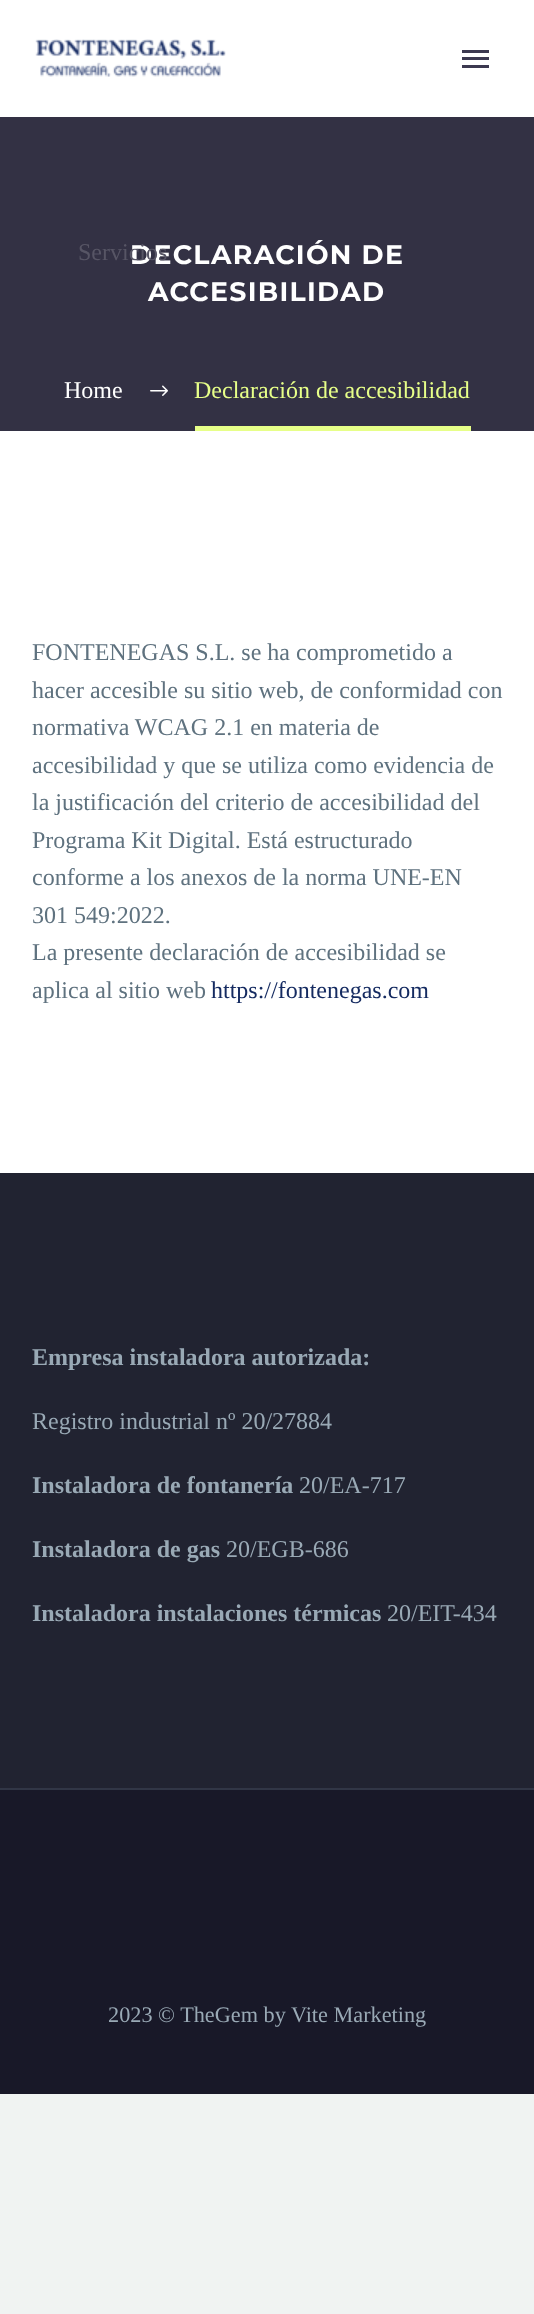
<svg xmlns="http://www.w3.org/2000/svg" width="534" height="2314">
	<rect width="100%" height="100%" fill="#F0F3F2" />
	<rect x="0" y="117" width="534" height="314" fill="#333144" />
	<g font-family="Montserrat" font-size="26.75" font-weight="700" letter-spacing="1.3" fill="#FFFFFF">
		<text x="130" y="264">DECLARACIÓN DE</text>
		<text x="148" y="301">ACCESIBILIDAD</text>
	</g>
	<text x="64" y="398" font-family="Liberation Serif" font-size="24" fill="#FFFFFF">Home</text>
	<image x="150" y="385" width="18" height="11" href="assets/img1.png" />
	<rect x="195" y="426" width="276" height="5" fill="#E7FF89" />
	<text x="194" y="398" font-family="Liberation Serif" font-size="24" fill="#E7FF89">Declaración de accesibilidad</text>
	<rect x="0" y="431" width="534" height="742" fill="#FFFFFF" />
	<g font-family="Liberation Serif" font-size="24" fill="#5F727F">
		<text x="32" y="660">FONTENEGAS S.L. se ha comprometido a</text>
		<text x="32" y="698">hacer accesible su sitio web, de conformidad con</text>
		<text x="32" y="735">normativa WCAG 2.1 en materia de</text>
		<text x="32" y="773">accesibilidad y que se utiliza como evidencia de</text>
		<text x="32" y="810">la justificación del criterio de accesibilidad del</text>
		<text x="32" y="848">Programa Kit Digital. Está estructurado</text>
		<text x="32" y="885">conforme a los anexos de la norma UNE-EN</text>
		<text x="32" y="923">301 549:2022.</text>
		<text x="32" y="960">La presente declaración de accesibilidad se</text>
		<text x="32" y="998">aplica al sitio web</text>
	</g>
	<text x="211" y="998" font-family="Liberation Serif" font-size="24" fill="#152B61">https://fontenegas.com</text>
	<rect x="0" y="0" width="534" height="117" fill="#FFFFFF" />
	<image x="35" y="39" width="191" height="38" href="assets/img2.png" />
	<rect x="462" y="50" width="27" height="3" fill="#3C3950" />
	<rect x="462" y="57" width="27" height="3" fill="#3C3950" />
	<rect x="462" y="65" width="27" height="3" fill="#3C3950" />
	<text x="78" y="260" font-family="Liberation Serif" font-size="24" fill="#575565">Servicios</text>
	<rect x="0" y="1173" width="534" height="615" fill="#212331" />
	<text x="32" y="1365" font-family="Liberation Serif" font-size="24" font-weight="700" fill="#99A9B5">Empresa instaladora autorizada:</text>
	<text x="32" y="1429" font-family="Liberation Serif" font-size="24" fill="#99A9B5">Registro industrial nº 20/27884</text>
	<text x="32" y="1493" font-family="Liberation Serif" font-size="24" font-weight="700" fill="#99A9B5">Instaladora de fontanería</text>
	<text x="299" y="1493" font-family="Liberation Serif" font-size="24" fill="#99A9B5">20/EA-717</text>
	<text x="32" y="1557" font-family="Liberation Serif" font-size="24" font-weight="700" fill="#99A9B5">Instaladora de gas</text>
	<text x="226" y="1557" font-family="Liberation Serif" font-size="24" fill="#99A9B5">20/EGB-686</text>
	<text x="32" y="1621" font-family="Liberation Serif" font-size="24" font-weight="700" fill="#99A9B5">Instaladora instalaciones térmicas</text>
	<text x="387" y="1621" font-family="Liberation Serif" font-size="24" fill="#99A9B5">20/EIT-434</text>
	<rect x="0" y="1790" width="534" height="304" fill="#181828" />
	<rect x="0" y="1788" width="534" height="2" fill="#313646" />
	<text x="108" y="2022" font-family="Liberation Serif" font-size="22.25" fill="#99A9B5">2023 © TheGem by Vite Marketing</text>
</svg>
